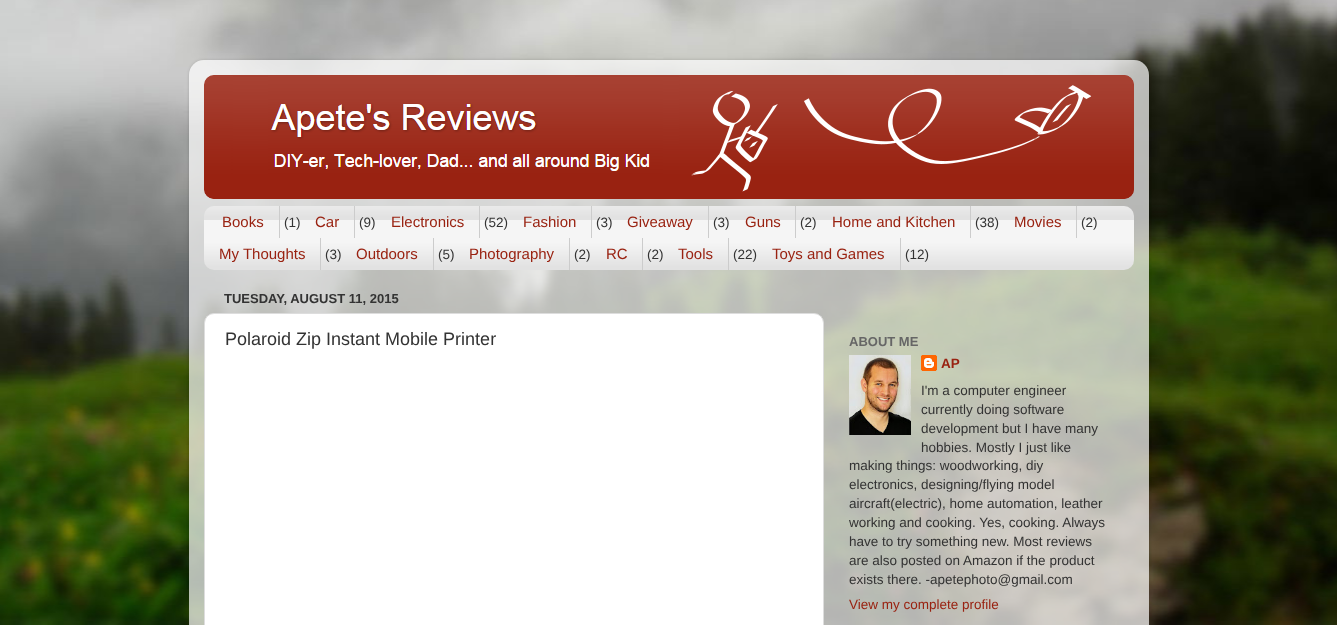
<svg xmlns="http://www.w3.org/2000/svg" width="1337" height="625">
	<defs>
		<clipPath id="clip1"><path d="M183 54H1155V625H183ZM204 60H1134C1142.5 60 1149 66.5 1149 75V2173C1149 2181.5 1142.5 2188 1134 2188H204C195.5 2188 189 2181.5 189 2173V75C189 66.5 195.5 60 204 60Z" clip-rule="evenodd" /></clipPath>
	</defs>
	<rect width="100%" height="100%" fill="#FFFFFF" />
	<image x="0" y="0" width="1337" height="625" href="assets/img1.png" />
	<g clip-path="url(#clip1)">
		<rect x="189" y="60" width="960" height="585" rx="15" fill="#000000" fill-opacity="0.15" filter="blur(1.5px)" />
	</g>
	<image x="189" y="60" width="960" height="565" href="assets/img2.png" />
	<rect x="204" y="75" width="930" height="124" rx="10" fill="#992211" />
	<image x="204" y="75" width="930" height="10" href="assets/img3.png" />
	<image x="204" y="75" width="930" height="124" href="assets/img4.png" />
	<rect x="204" y="206" width="930" height="64" rx="10" fill="#F5F5F5" />
	<image x="204" y="206" width="930" height="64" href="assets/img5.png" />
	<rect x="279" y="206" width="1" height="32" fill="#CCCCCC" />
	<text x="222" y="227" font-family="Liberation Sans" font-size="15" fill="#992211">Books</text>
	<text x="284" y="227" font-family="Liberation Sans" font-size="13.5" fill="#333333">(1)</text>
	<rect x="354" y="206" width="1" height="32" fill="#CCCCCC" />
	<text x="315" y="227" font-family="Liberation Sans" font-size="15" fill="#992211">Car</text>
	<text x="359" y="227" font-family="Liberation Sans" font-size="13.5" fill="#333333">(9)</text>
	<rect x="479" y="206" width="1" height="32" fill="#CCCCCC" />
	<text x="391" y="227" font-family="Liberation Sans" font-size="15" fill="#992211">Electronics</text>
	<text x="484" y="227" font-family="Liberation Sans" font-size="13.5" fill="#333333">(52)</text>
	<rect x="591" y="206" width="1" height="32" fill="#CCCCCC" />
	<text x="523" y="227" font-family="Liberation Sans" font-size="15" fill="#992211">Fashion</text>
	<text x="596" y="227" font-family="Liberation Sans" font-size="13.5" fill="#333333">(3)</text>
	<rect x="708" y="206" width="1" height="32" fill="#CCCCCC" />
	<text x="627" y="227" font-family="Liberation Sans" font-size="15" fill="#992211">Giveaway</text>
	<text x="713" y="227" font-family="Liberation Sans" font-size="13.5" fill="#333333">(3)</text>
	<rect x="795" y="206" width="1" height="32" fill="#CCCCCC" />
	<text x="745" y="227" font-family="Liberation Sans" font-size="15" fill="#992211">Guns</text>
	<text x="800" y="227" font-family="Liberation Sans" font-size="13.5" fill="#333333">(2)</text>
	<rect x="970" y="206" width="1" height="32" fill="#CCCCCC" />
	<text x="832" y="227" font-family="Liberation Sans" font-size="15" fill="#992211">Home and Kitchen</text>
	<text x="975" y="227" font-family="Liberation Sans" font-size="13.5" fill="#333333">(38)</text>
	<rect x="1076" y="206" width="1" height="32" fill="#CCCCCC" />
	<text x="1014" y="227" font-family="Liberation Sans" font-size="15" fill="#992211">Movies</text>
	<text x="1081" y="227" font-family="Liberation Sans" font-size="13.5" fill="#333333">(2)</text>
	<rect x="320" y="238" width="1" height="32" fill="#CCCCCC" />
	<text x="219" y="259" font-family="Liberation Sans" font-size="15" fill="#992211">My Thoughts</text>
	<text x="325" y="259" font-family="Liberation Sans" font-size="13.5" fill="#333333">(3)</text>
	<rect x="433" y="238" width="1" height="32" fill="#CCCCCC" />
	<text x="356" y="259" font-family="Liberation Sans" font-size="15" fill="#992211">Outdoors</text>
	<text x="438" y="259" font-family="Liberation Sans" font-size="13.5" fill="#333333">(5)</text>
	<rect x="569" y="238" width="1" height="32" fill="#CCCCCC" />
	<text x="469" y="259" font-family="Liberation Sans" font-size="15" fill="#992211">Photography</text>
	<text x="574" y="259" font-family="Liberation Sans" font-size="13.5" fill="#333333">(2)</text>
	<rect x="642" y="238" width="1" height="32" fill="#CCCCCC" />
	<text x="606" y="259" font-family="Liberation Sans" font-size="15" fill="#992211">RC</text>
	<text x="647" y="259" font-family="Liberation Sans" font-size="13.5" fill="#333333">(2)</text>
	<rect x="728" y="238" width="1" height="32" fill="#CCCCCC" />
	<text x="678" y="259" font-family="Liberation Sans" font-size="15" fill="#992211">Tools</text>
	<text x="733" y="259" font-family="Liberation Sans" font-size="13.5" fill="#333333">(22)</text>
	<rect x="900" y="238" width="1" height="32" fill="#CCCCCC" />
	<text x="772" y="259" font-family="Liberation Sans" font-size="15" fill="#992211">Toys and Games</text>
	<text x="905" y="259" font-family="Liberation Sans" font-size="13.5" fill="#333333">(12)</text>
	<text x="224" y="303" font-family="Liberation Sans" font-size="13" font-weight="700" fill="#333333">TUESDAY, AUGUST 11, 2015</text>
	<rect x="204.5" y="313.5" width="619" height="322" rx="9.5" fill="#FFFFFF" stroke="#DDDDDD" />
	<text x="225" y="345" font-family="Liberation Sans" font-size="18" fill="#333333">Polaroid Zip Instant Mobile Printer</text>
	<text x="849" y="346" font-family="Liberation Sans" font-size="13" font-weight="700" fill="#666666">ABOUT ME</text>
	<image x="849" y="355" width="62" height="80" href="assets/img6.png" />
	<image x="921" y="355" width="16" height="16" href="assets/img7.png" />
	<text x="941" y="368" font-family="Liberation Sans" font-size="13.5" font-weight="700" fill="#992211">AP</text>
	<g font-family="Liberation Sans" font-size="13.5" fill="#333333">
		<text x="921" y="395">I'm a computer engineer</text>
		<text x="921" y="414">currently doing software</text>
		<text x="921" y="433">development but I have many</text>
		<text x="921" y="452">hobbies. Mostly I just like</text>
		<text x="849" y="470">making things: woodworking, diy</text>
		<text x="849" y="489">electronics, designing/flying model</text>
		<text x="849" y="508">aircraft(electric), home automation, leather</text>
		<text x="849" y="527">working and cooking. Yes, cooking. Always</text>
		<text x="849" y="546">have to try something new. Most reviews</text>
		<text x="849" y="565">are also posted on Amazon if the product</text>
		<text x="849" y="584">exists there. -apetephoto@gmail.com</text>
	</g>
	<text x="849" y="609" font-family="Liberation Sans" font-size="13.5" fill="#992211">View my complete profile</text>
</svg>
